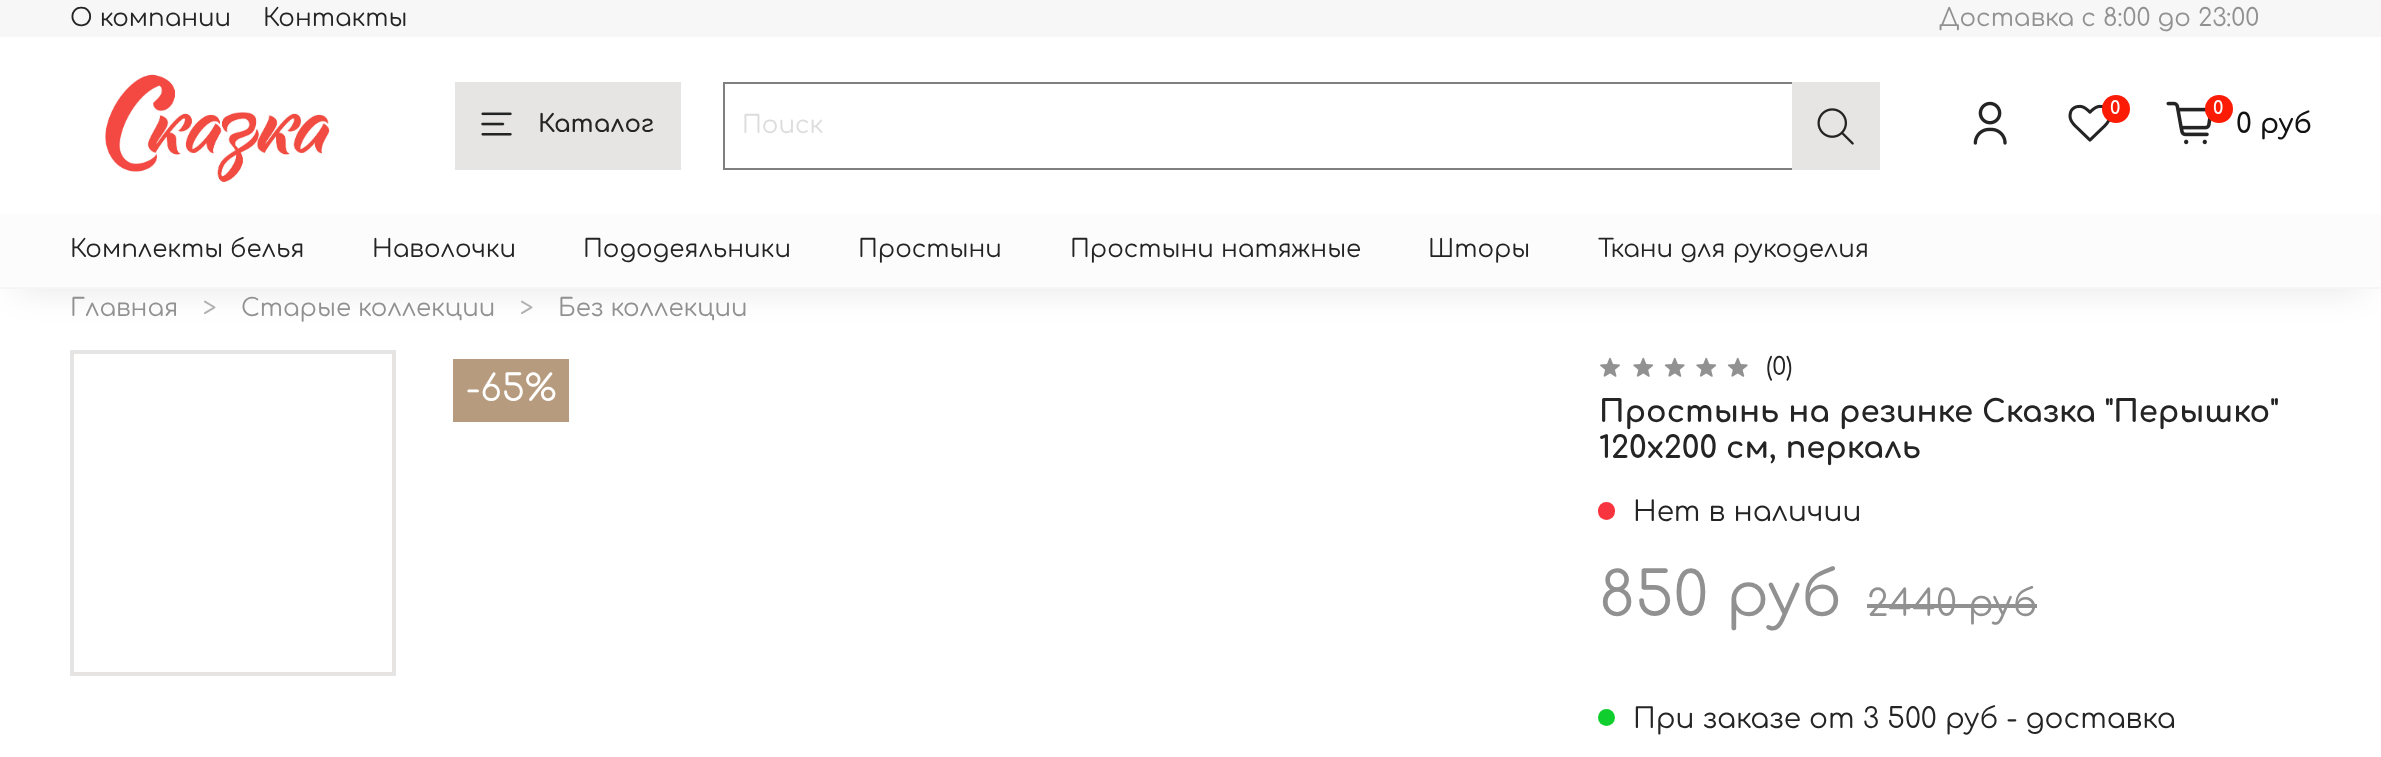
<svg xmlns="http://www.w3.org/2000/svg" width="2381" height="757">
	<rect width="100%" height="100%" fill="#FFFFFF" />
	<rect x="0" y="0" width="2381" height="37" fill="#F7F7F7" />
	<g font-family="Comfortaa" font-size="24.5" fill="#242424">
		<text x="70" y="26">О компании</text>
		<text x="263" y="26">Контакты</text>
	</g>
	<text x="1939" y="26" font-family="Comfortaa" font-size="24.5" fill="#919191">Доставка с 8:00 до 23:00</text>
	<image x="105" y="74" width="225" height="109" href="assets/img1.png" />
	<rect x="455" y="82" width="226" height="88" fill="#E6E5E4" />
	<image x="481" y="112" width="31" height="24" href="assets/img2.png" />
	<text x="538" y="132" font-family="Comfortaa" font-size="24.5" font-weight="600" fill="#242424">Каталог</text>
	<rect x="723" y="82" width="1069" height="2" fill="#808080" />
	<rect x="723" y="168" width="1069" height="2" fill="#808080" />
	<rect x="723" y="82" width="2" height="88" fill="#808080" />
	<text x="742" y="133" font-family="Comfortaa" font-size="24.5" fill="#DDDDDD">Поиск</text>
	<rect x="1792" y="82" width="88" height="88" fill="#E6E5E4" />
	<image x="1817" y="108" width="37" height="37" href="assets/img3.png" />
	<image x="1973" y="101" width="34" height="44" href="assets/img4.png" />
	<image x="2068" y="104" width="43" height="38" href="assets/img5.png" />
	<circle cx="2116" cy="109" r="14" fill="#FC1B05" />
	<text x="2110" y="114" font-family="Comfortaa" font-size="18" font-weight="700" fill="#FFFFFF">0</text>
	<image x="2166" y="101" width="46" height="44" href="assets/img6.png" />
	<circle cx="2219" cy="109" r="14" fill="#FC1B05" />
	<text x="2213" y="114" font-family="Comfortaa" font-size="18" font-weight="700" fill="#FFFFFF">0</text>
	<text x="2236" y="133" font-family="Comfortaa" font-size="27.5" font-weight="600" fill="#121212">0 руб</text>
	<rect x="18" y="249" width="2346" height="40" fill="#000000" fill-opacity="0.1" filter="blur(17.5px)" />
	<rect x="0" y="214" width="2381" height="73" fill="#FCFCFC" />
	<rect x="0" y="287" width="2381" height="2" fill="#F5F5F5" />
	<g font-family="Comfortaa" font-size="24.5" fill="#242424">
		<text x="70" y="257">Комплекты белья</text>
		<text x="372" y="257">Наволочки</text>
		<text x="583" y="257">Пододеяльники</text>
		<text x="858" y="257">Простыни</text>
		<text x="1070" y="257">Простыни натяжные</text>
		<text x="1428" y="257">Шторы</text>
		<text x="1598" y="257">Ткани для рукоделия</text>
	</g>
	<text x="70" y="316" font-family="Comfortaa" font-size="24.5" fill="#919191">Главная</text>
	<text x="203" y="316" font-family="Comfortaa" font-size="24.5" fill="#B1B1B1">&gt;</text>
	<text x="241" y="316" font-family="Comfortaa" font-size="24.5" fill="#919191">Старые коллекции</text>
	<text x="520" y="316" font-family="Comfortaa" font-size="24.5" fill="#B1B1B1">&gt;</text>
	<text x="558" y="316" font-family="Comfortaa" font-size="24.5" fill="#919191">Без коллекции</text>
	<image x="1600" y="357" width="20" height="20" href="assets/img7.png" />
	<image x="1633" y="357" width="21" height="20" href="assets/img8.png" />
	<image x="1664" y="357" width="21" height="20" href="assets/img9.png" />
	<image x="1696" y="357" width="21" height="20" href="assets/img8.png" />
	<image x="1727" y="357" width="21" height="20" href="assets/img9.png" />
	<text x="1766" y="375" font-family="Comfortaa" font-size="24.5" fill="#242424">(0)</text>
	<rect x="72" y="352" width="322" height="322" fill="none" stroke="#E6E5E4" stroke-width="4" />
	<rect x="453" y="359" width="116" height="63" fill="#B79B7E" />
	<text x="466" y="401" font-family="Comfortaa" font-size="36.75" fill="#FFFFFF">-65%</text>
	<g font-family="Comfortaa" font-size="30.6" font-weight="700" fill="#242424">
		<text x="1599" y="422">Простынь на резинке Сказка "Перышко"</text>
		<text x="1599" y="458">120х200 см, перкаль</text>
	</g>
	<rect x="1598" y="502" width="17" height="18" rx="8.5" fill="#F8353E" />
	<text x="1633" y="521" font-family="Comfortaa" font-size="28" fill="#242424">Нет в наличии</text>
	<text x="1599" y="616" font-family="Comfortaa" font-size="61" fill="#919191">850 руб</text>
	<text x="1867" y="616" font-family="Comfortaa" font-size="36.75" fill="#919191">2440 руб</text>
	<rect x="1867" y="604" width="170" height="4" fill="#919191" />
	<circle cx="1606.5" cy="717.5" r="8.5" fill="#0FCE2D" />
	<text x="1633" y="728" font-family="Comfortaa" font-size="28" fill="#242424">При заказе от 3 500 руб - доставка</text>
</svg>
